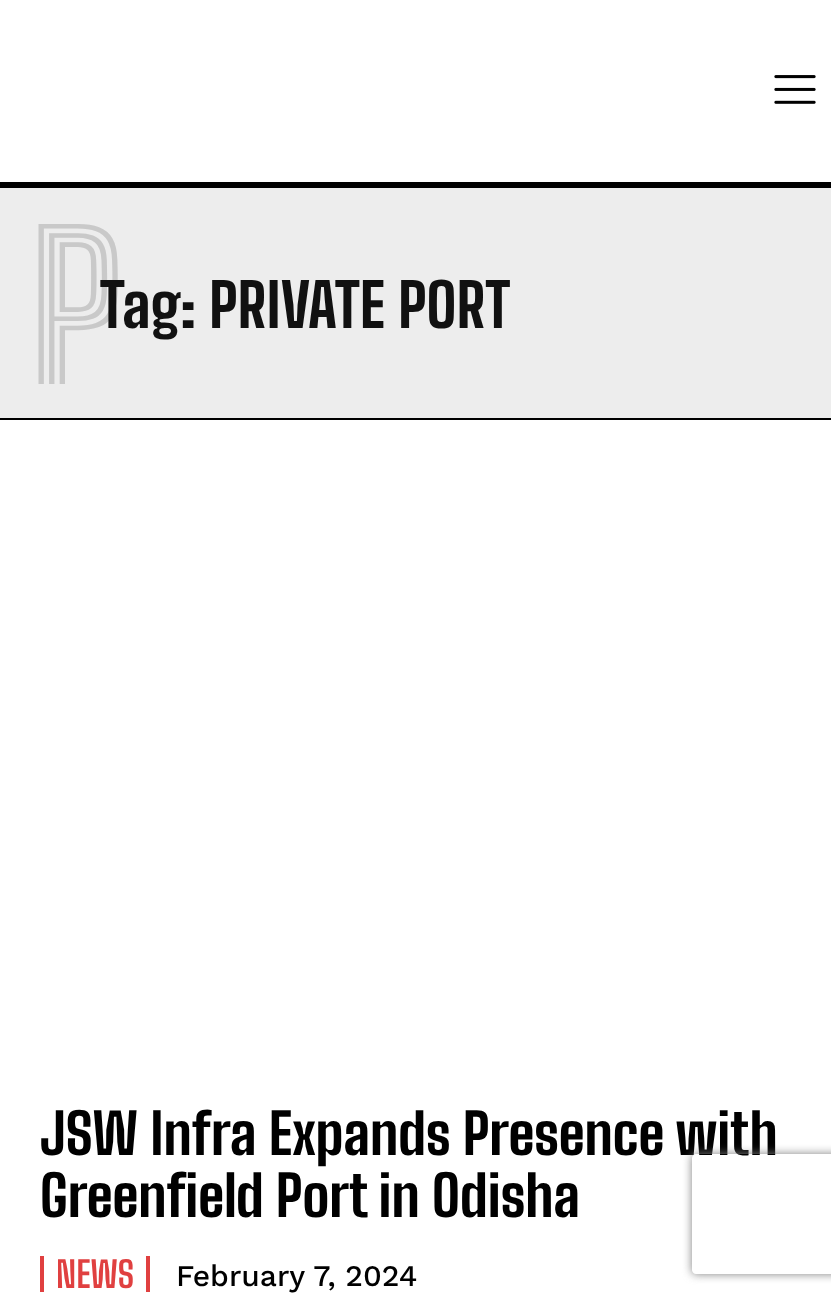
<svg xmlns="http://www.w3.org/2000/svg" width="831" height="1302">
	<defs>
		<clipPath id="clip1"><path d="M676 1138H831V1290H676ZM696 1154H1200C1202 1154 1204 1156 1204 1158V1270C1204 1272 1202 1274 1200 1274H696C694 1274 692 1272 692 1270V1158C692 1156 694 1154 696 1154Z" clip-rule="evenodd" /></clipPath>
	</defs>
	<rect width="100%" height="100%" fill="#FFFFFF" />
	<rect x="0" y="182" width="831" height="6" fill="#000000" />
	<image x="774" y="75" width="42" height="29" href="assets/img1.png" />
	<rect x="0" y="188" width="831" height="230" fill="#EDEDED" />
	<rect x="0" y="418" width="831" height="2" fill="#000000" />
	<text x="28" y="384" font-family="Big Shoulders Inline Text" font-size="200" font-weight="800" fill="#C9C9C9">P</text>
	<text x="100" y="328" font-family="Big Shoulders Text" font-size="60" font-weight="800" fill="#111111">Tag: PRIVATE PORT</text>
	<g font-family="Big Shoulders Text" font-size="56" font-weight="800" fill="#000000">
		<text x="40" y="1155">JSW Infra Expands Presence with</text>
		<text x="40" y="1217">Greenfield Port in Odisha</text>
	</g>
	<rect x="146" y="1256" width="4" height="36" fill="#E04040" />
	<rect x="40" y="1256" width="4" height="36" fill="#E04040" />
	<text x="56" y="1288" font-family="Big Shoulders Text" font-size="36" font-weight="700" fill="#E04040">NEWS</text>
	<text x="176" y="1286" font-family="Work Sans" font-size="30" font-weight="500" fill="#000000">February 7, 2024</text>
	<g clip-path="url(#clip1)">
		<rect x="692" y="1154" width="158" height="120" rx="4" fill="#808080" filter="blur(5px)" />
	</g>
</svg>
